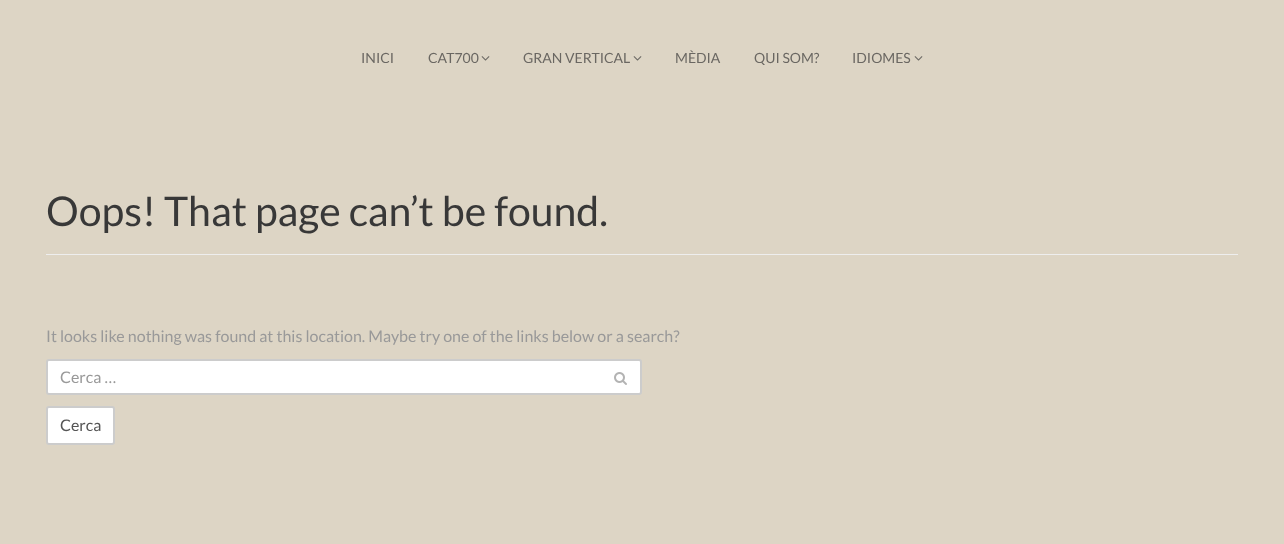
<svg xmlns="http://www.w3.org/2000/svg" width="1284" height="544">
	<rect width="100%" height="100%" fill="#DDD5C5" />
	<g font-family="Lato" font-size="14" fill="#6A6762">
		<text x="361" y="63">INICI</text>
		<text x="428" y="63">CAT700</text>
	</g>
	<image x="481" y="56" width="9" height="5" href="assets/img1.png" />
	<text x="523" y="63" font-family="Lato" font-size="14" fill="#6A6762">GRAN VERTICAL</text>
	<image x="633" y="56" width="9" height="5" href="assets/img1.png" />
	<g font-family="Lato" font-size="14" fill="#6A6762">
		<text x="675" y="63">MÈDIA</text>
		<text x="754" y="63">QUI SOM?</text>
		<text x="852" y="63">IDIOMES</text>
	</g>
	<image x="914" y="56" width="9" height="5" href="assets/img1.png" />
	<rect x="46" y="254" width="1192" height="1" fill="#EEEEEE" />
	<text x="46" y="226" font-family="Lato" font-size="41" fill="#383838">Oops! That page can’t be found.</text>
	<text x="46" y="342" font-family="Lato" font-size="16" fill="#999999">It looks like nothing was found at this location. Maybe try one of the links below or a search?</text>
	<rect x="47" y="360" width="594" height="34" rx="2" fill="#FFFFFF" stroke="#CCCCCC" stroke-width="2" />
	<text x="60" y="383" font-family="Lato" font-size="16" fill="#999999">Cerca …</text>
	<image x="614" y="372" width="13" height="13" href="assets/img2.png" />
	<rect x="47" y="407" width="67" height="37" rx="2" fill="#FFFFFF" stroke="#CCCCCC" stroke-width="2" />
	<text x="60" y="431" font-family="Lato" font-size="16" fill="#555555">Cerca</text>
</svg>
